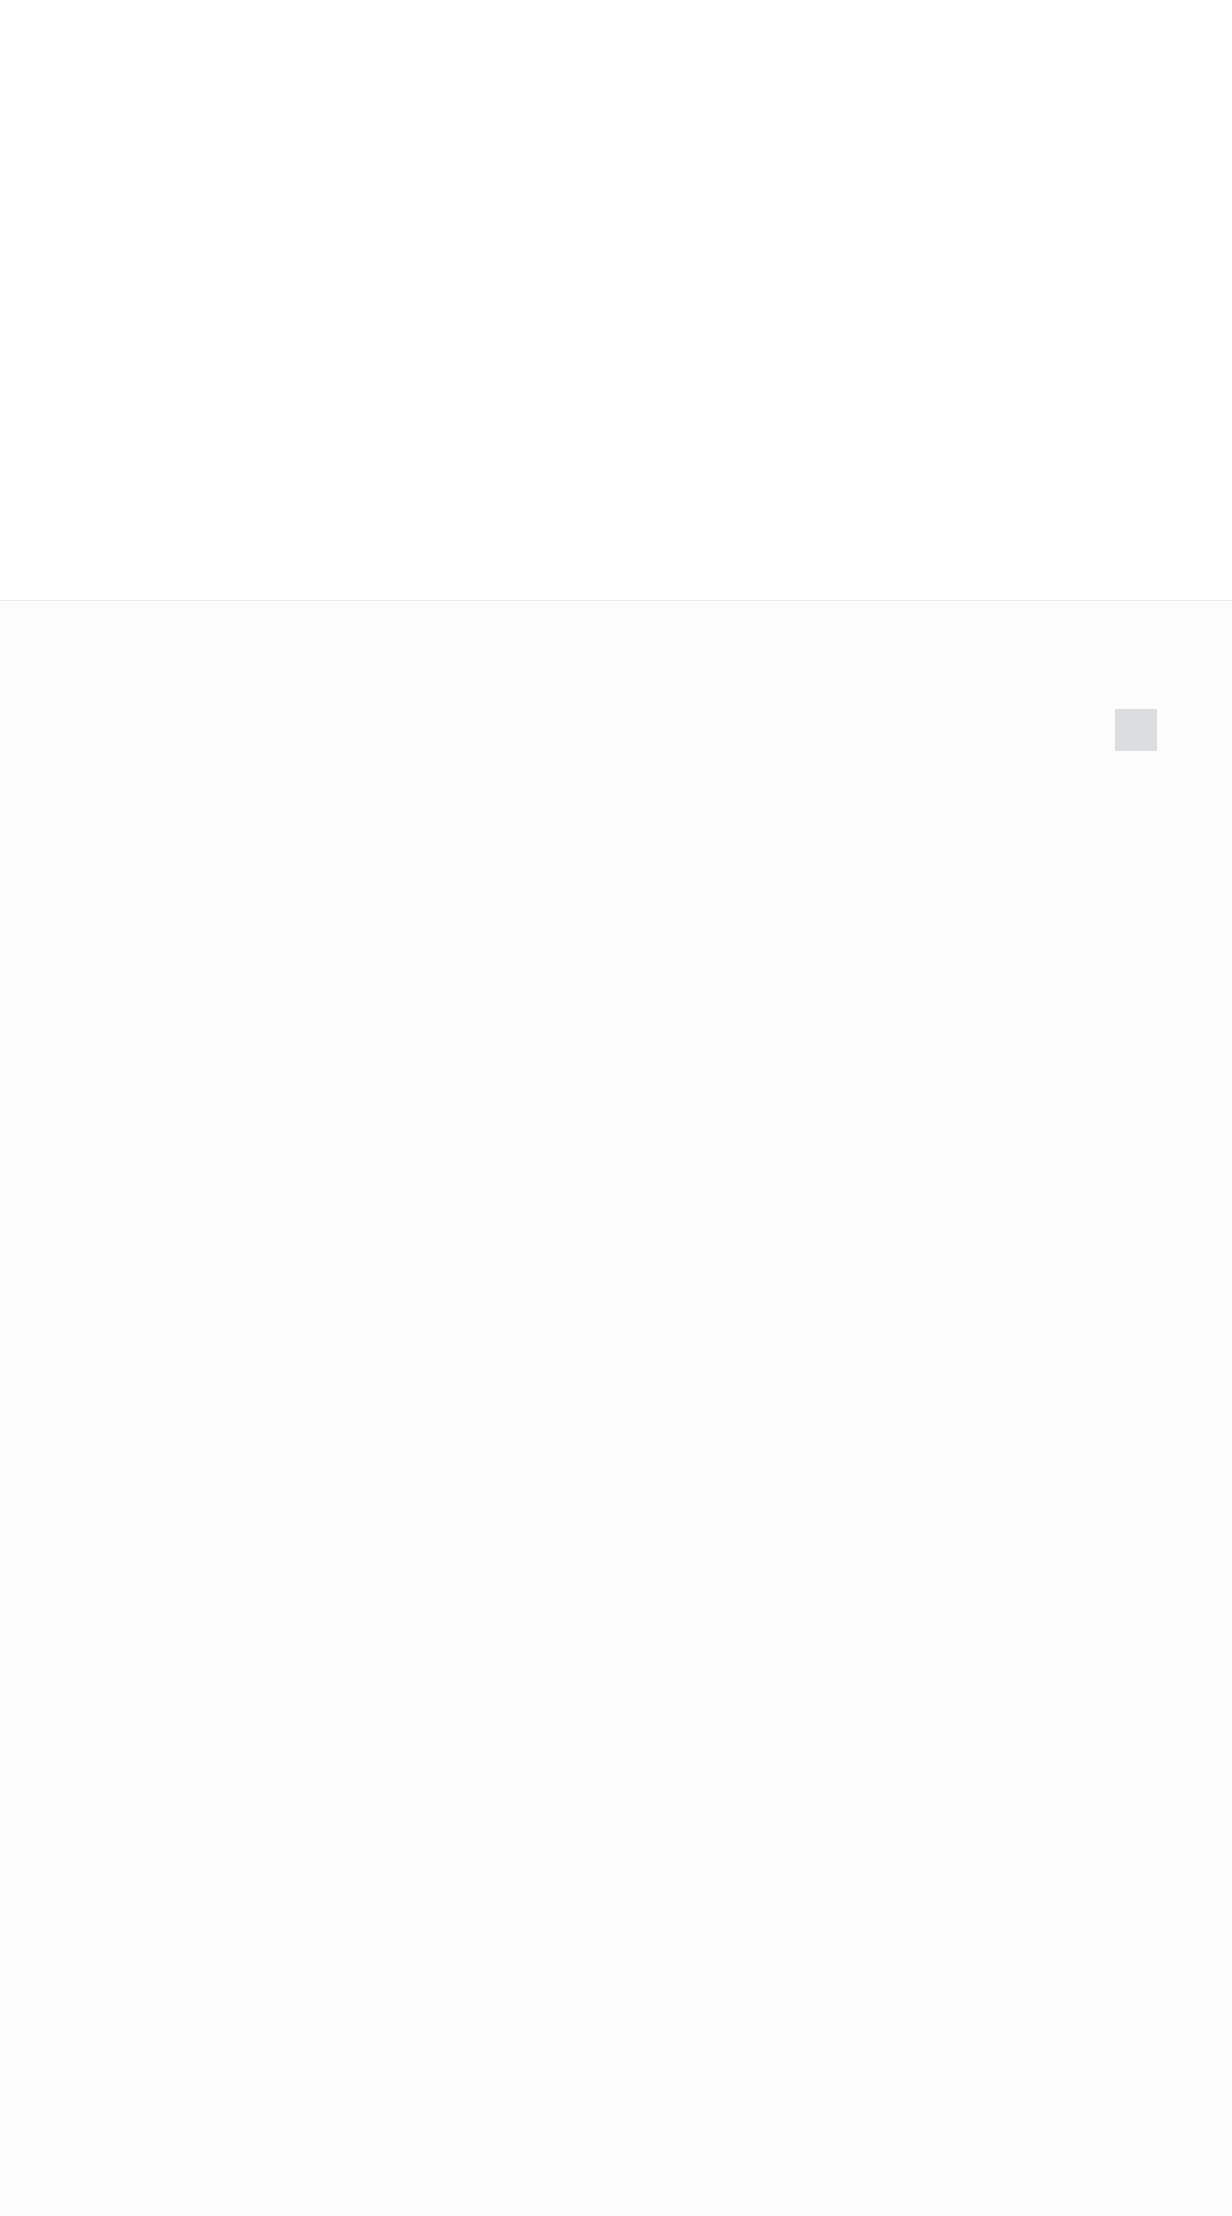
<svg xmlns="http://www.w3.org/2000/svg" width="1232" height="2216">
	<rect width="100%" height="100%" fill="#FCFCFC" />
	<rect x="0" y="0" width="1232" height="602" fill="#FFFFFF" />
	<rect x="0" y="600" width="1232" height="1" fill="#EBEBEB" />
	<rect x="1115" y="709" width="42" height="42" fill="#DBDDDF" />
</svg>
